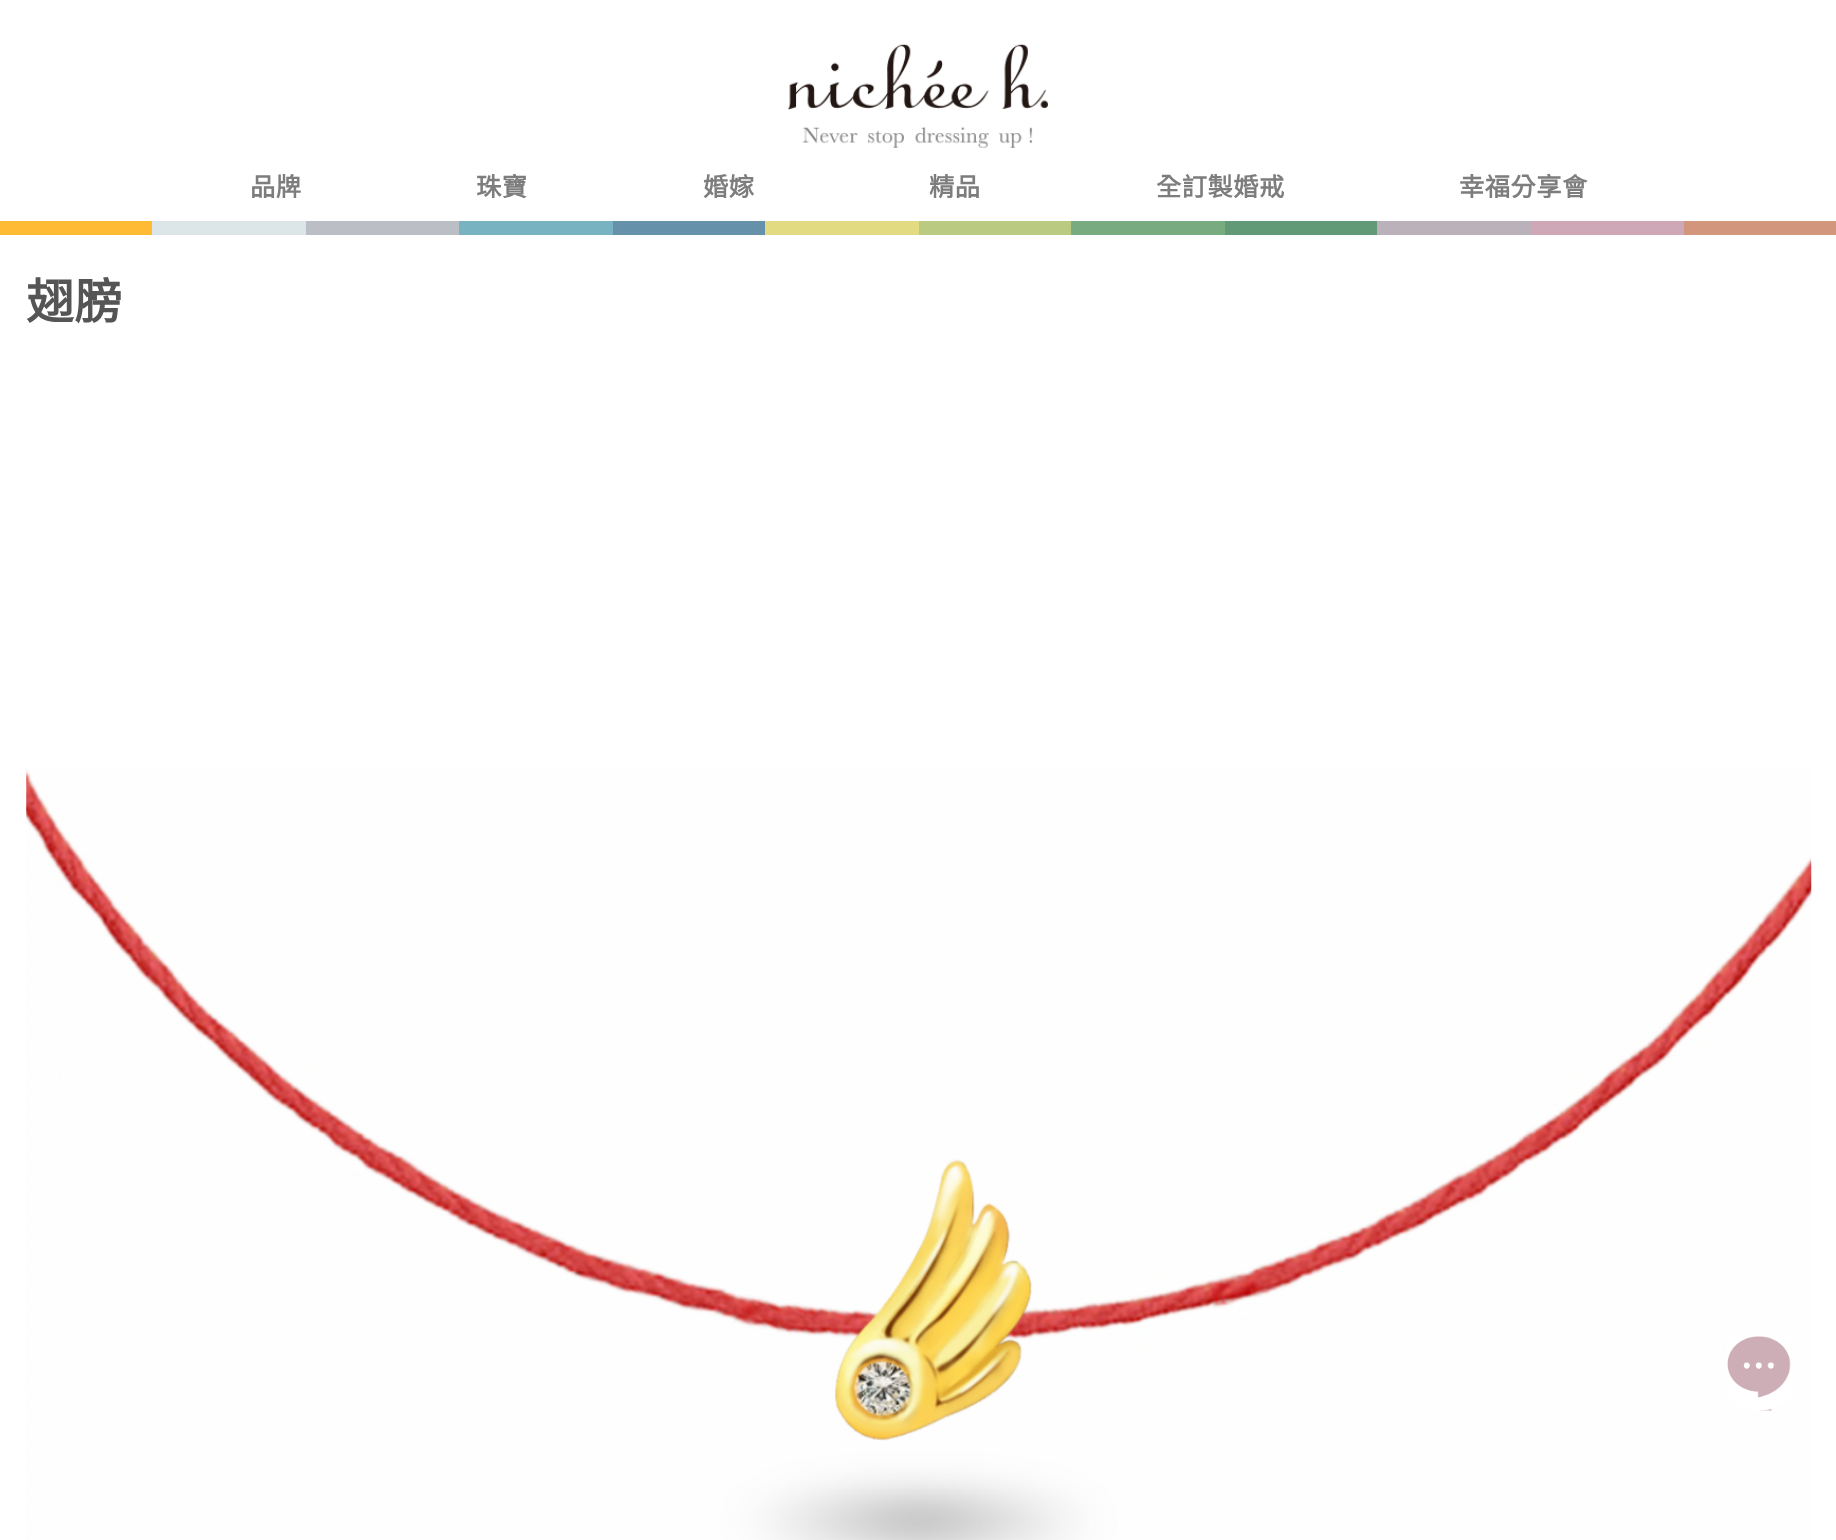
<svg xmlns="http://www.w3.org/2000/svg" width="1836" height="1540">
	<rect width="100%" height="100%" fill="#FFFFFF" />
	<image x="788" y="44" width="260" height="104" href="assets/img1.png" />
	<g font-family="Noto Sans CJK TC" font-size="25.25" font-weight="700" letter-spacing="0.5" fill="#7D7D7D">
		<text x="250" y="196">品牌</text>
		<text x="476" y="196">珠寶</text>
		<text x="703" y="196">婚嫁</text>
		<text x="929" y="196">精品</text>
		<text x="1156" y="196">全訂製婚戒</text>
		<text x="1459" y="196">幸福分享會</text>
	</g>
	<rect x="0" y="221" width="152" height="14" fill="#FFBB33" />
	<rect x="152" y="221" width="154" height="14" fill="#DCE6E8" />
	<rect x="306" y="221" width="153" height="14" fill="#BBBEC5" />
	<rect x="459" y="221" width="154" height="14" fill="#78B3C1" />
	<rect x="613" y="221" width="152" height="14" fill="#6591AA" />
	<rect x="765" y="221" width="154" height="14" fill="#E2DB81" />
	<rect x="919" y="221" width="152" height="14" fill="#BACA81" />
	<rect x="1071" y="221" width="154" height="14" fill="#78AB80" />
	<rect x="1225" y="221" width="152" height="14" fill="#629A77" />
	<rect x="1377" y="221" width="154" height="14" fill="#BBB1BA" />
	<rect x="1531" y="221" width="153" height="14" fill="#CEA8B7" />
	<rect x="1684" y="221" width="152" height="14" fill="#D2967C" />
	<text x="26" y="319" font-family="Noto Sans CJK TC" font-size="48" font-weight="700" fill="#555555">翅膀</text>
	<image x="26" y="768" width="1786" height="772" href="assets/img2.png" />
	<image x="1727" y="1336" width="64" height="62" href="assets/img3.png" />
	<image x="1727" y="1336" width="64" height="62" href="assets/img4.png" />
	<image x="1735" y="1402" width="49" height="9" href="assets/img7.png" />
	<image x="1728" y="1397" width="61" height="14" href="assets/img6.png" />
	<image x="1727" y="1336" width="64" height="75" href="assets/img5.png" />
</svg>
